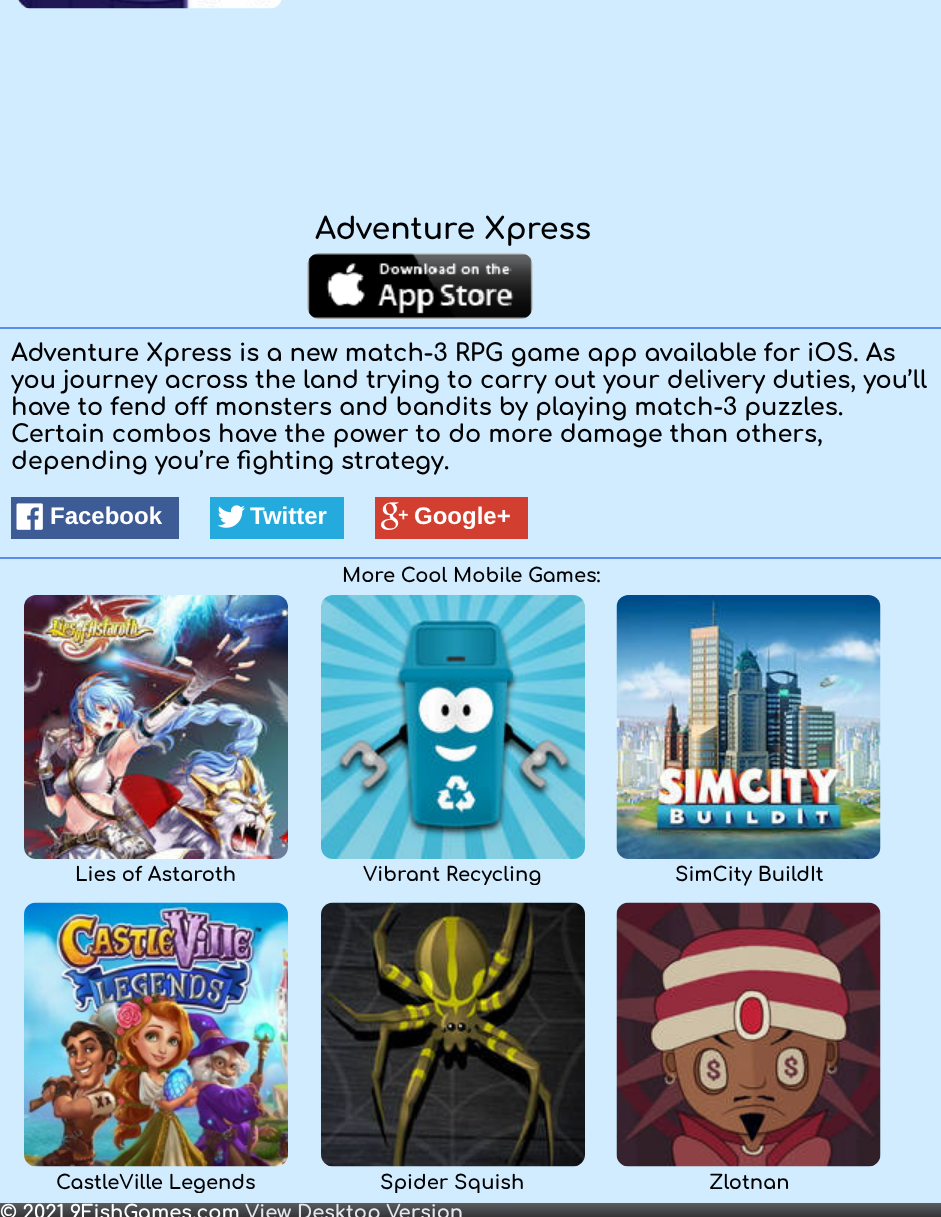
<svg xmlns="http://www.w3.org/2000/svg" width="941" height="1217">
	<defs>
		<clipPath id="clip1"><rect x="314" y="864" width="277" height="21" /></clipPath>
		<clipPath id="clip2"><rect x="17" y="1172" width="279" height="21" /></clipPath>
		<clipPath id="clip3"><rect x="314" y="1172" width="277" height="21" /></clipPath>
		<linearGradient id="g1" gradientUnits="userSpaceOnUse" x1="471" y1="1203" x2="471" y2="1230"><stop offset="0" stop-color="#5B5C60" /><stop offset="1" stop-color="#0F1010" /></linearGradient>
	</defs>
	<rect width="100%" height="100%" fill="#D1ECFF" />
	<image x="18" y="0" width="264" height="9" href="assets/img1.png" />
	<text x="315" y="239" font-family="Comfortaa" font-size="30" font-weight="700" fill="#000000">Adventure Xpress</text>
	<image x="307" y="253" width="226" height="66" href="assets/img2.png" />
	<rect x="0" y="327" width="941" height="2" fill="#5A8EEE" />
	<g font-family="Comfortaa" font-size="24" font-weight="700" fill="#000000">
		<text x="11" y="361">Adventure Xpress is a new match-3 RPG game app available for iOS. As</text>
		<text x="11" y="388">you journey across the land trying to carry out your delivery duties, you’ll</text>
		<text x="11" y="415">have to fend off monsters and bandits by playing match-3 puzzles.</text>
		<text x="11" y="442">Certain combos have the power to do more damage than others,</text>
		<text x="11" y="469">depending you’re fighting strategy.</text>
	</g>
	<rect x="11" y="497" width="168" height="42" fill="#3D5B95" />
	<image x="16" y="503" width="27" height="27" href="assets/img3.png" />
	<text x="50" y="524" font-family="Liberation Sans" font-size="24" font-weight="700" fill="#FFFFFF">Facebook</text>
	<rect x="210" y="497" width="134" height="42" fill="#24AADD" />
	<image x="217" y="505" width="28" height="23" href="assets/img4.png" />
	<text x="250" y="524" font-family="Liberation Sans" font-size="24" font-weight="700" fill="#FFFFFF">Twitter</text>
	<rect x="375" y="497" width="153" height="42" fill="#D23E30" />
	<image x="381" y="502" width="27" height="28" href="assets/img5.png" />
	<text x="414" y="524" font-family="Liberation Sans" font-size="24" font-weight="700" fill="#FFFFFF">Google+</text>
	<rect x="0" y="557" width="941" height="2" fill="#5A8EEE" />
	<text x="342" y="582" font-family="Comfortaa" font-size="19.5" font-weight="700" fill="#000000">More Cool Mobile Games:</text>
	<image x="24" y="595" width="264" height="264" href="assets/img6.png" />
	<text x="75" y="881" font-family="Comfortaa" font-size="19.5" font-weight="700" fill="#000000">Lies of Astaroth</text>
	<image x="321" y="595" width="264" height="264" href="assets/img7.png" />
	<g clip-path="url(#clip1)">
		<text x="363" y="881" font-family="Comfortaa" font-size="19.5" font-weight="700" fill="#000000">Vibrant Recycling</text>
	</g>
	<image x="616" y="595" width="265" height="264" href="assets/img8.png" />
	<text x="675" y="881" font-family="Comfortaa" font-size="19.5" font-weight="700" fill="#000000">SimCity BuildIt</text>
	<image x="24" y="902" width="264" height="265" href="assets/img9.png" />
	<g clip-path="url(#clip2)">
		<text x="56" y="1189" font-family="Comfortaa" font-size="19.5" font-weight="700" fill="#000000">CastleVille Legends</text>
	</g>
	<image x="321" y="902" width="264" height="265" href="assets/img10.png" />
	<g clip-path="url(#clip3)">
		<text x="380" y="1189" font-family="Comfortaa" font-size="19.5" font-weight="700" fill="#000000">Spider Squish</text>
	</g>
	<image x="616" y="902" width="265" height="265" href="assets/img11.png" />
	<text x="709" y="1189" font-family="Comfortaa" font-size="19.5" font-weight="700" fill="#000000">Zlotnan</text>
	<rect x="0" y="1203" width="941" height="14" fill="url(#g1)" />
	<text x="0" y="1219" font-family="Comfortaa" font-size="19.5" font-weight="700" fill="#FFFFFF">© 2021 9FishGames.com</text>
	<text x="245" y="1219" font-family="Comfortaa" font-size="19.5" font-weight="700" fill="#E5E7EE">View Desktop Version</text>
</svg>
